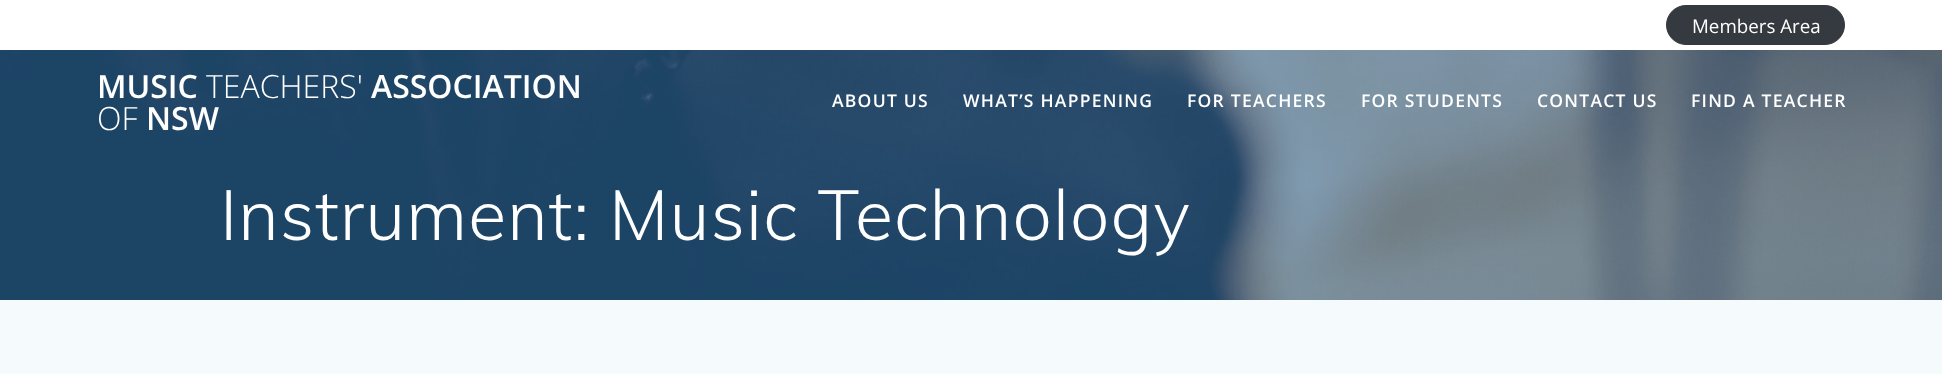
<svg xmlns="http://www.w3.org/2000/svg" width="1942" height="374">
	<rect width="100%" height="100%" fill="#FFFFFF" />
	<rect x="1666.5" y="5.5" width="178" height="39" rx="19.5" fill="#343A40" stroke="#343A40" />
	<text x="1692" y="33" font-family="Open Sans" font-size="18.75" fill="#FFFFFF">Members Area</text>
	<image x="0" y="50" width="1942" height="250" href="assets/img1.png" />
	<text x="97" y="98" font-family="Open Sans" font-size="32" font-weight="600" fill="#FFFFFF">MUSIC</text>
	<text x="206" y="98" font-family="Open Sans" font-size="32" font-weight="300" fill="#FFFFFF">TEACHERS'</text>
	<text x="371" y="98" font-family="Open Sans" font-size="32" font-weight="600" fill="#FFFFFF">ASSOCIATION</text>
	<text x="97" y="130" font-family="Open Sans" font-size="32" font-weight="300" fill="#FFFFFF">OF</text>
	<text x="146" y="130" font-family="Open Sans" font-size="32" font-weight="600" fill="#FFFFFF">NSW</text>
	<g font-family="Open Sans" font-size="17.5" font-weight="600" letter-spacing="1.25" fill="#FFFFFF">
		<text x="832" y="107">ABOUT US</text>
		<text x="963" y="107">WHAT’S HAPPENING</text>
		<text x="1187" y="107">FOR TEACHERS</text>
		<text x="1361" y="107">FOR STUDENTS</text>
		<text x="1537" y="107">CONTACT US</text>
		<text x="1691" y="107">FIND A TEACHER</text>
	</g>
	<text x="220" y="240" font-family="Muli" font-size="70" font-weight="300" letter-spacing="1.1" fill="#FFFFFF">Instrument: Music Technology</text>
	<rect x="0" y="300" width="1942" height="74" fill="#F5FAFD" />
</svg>
